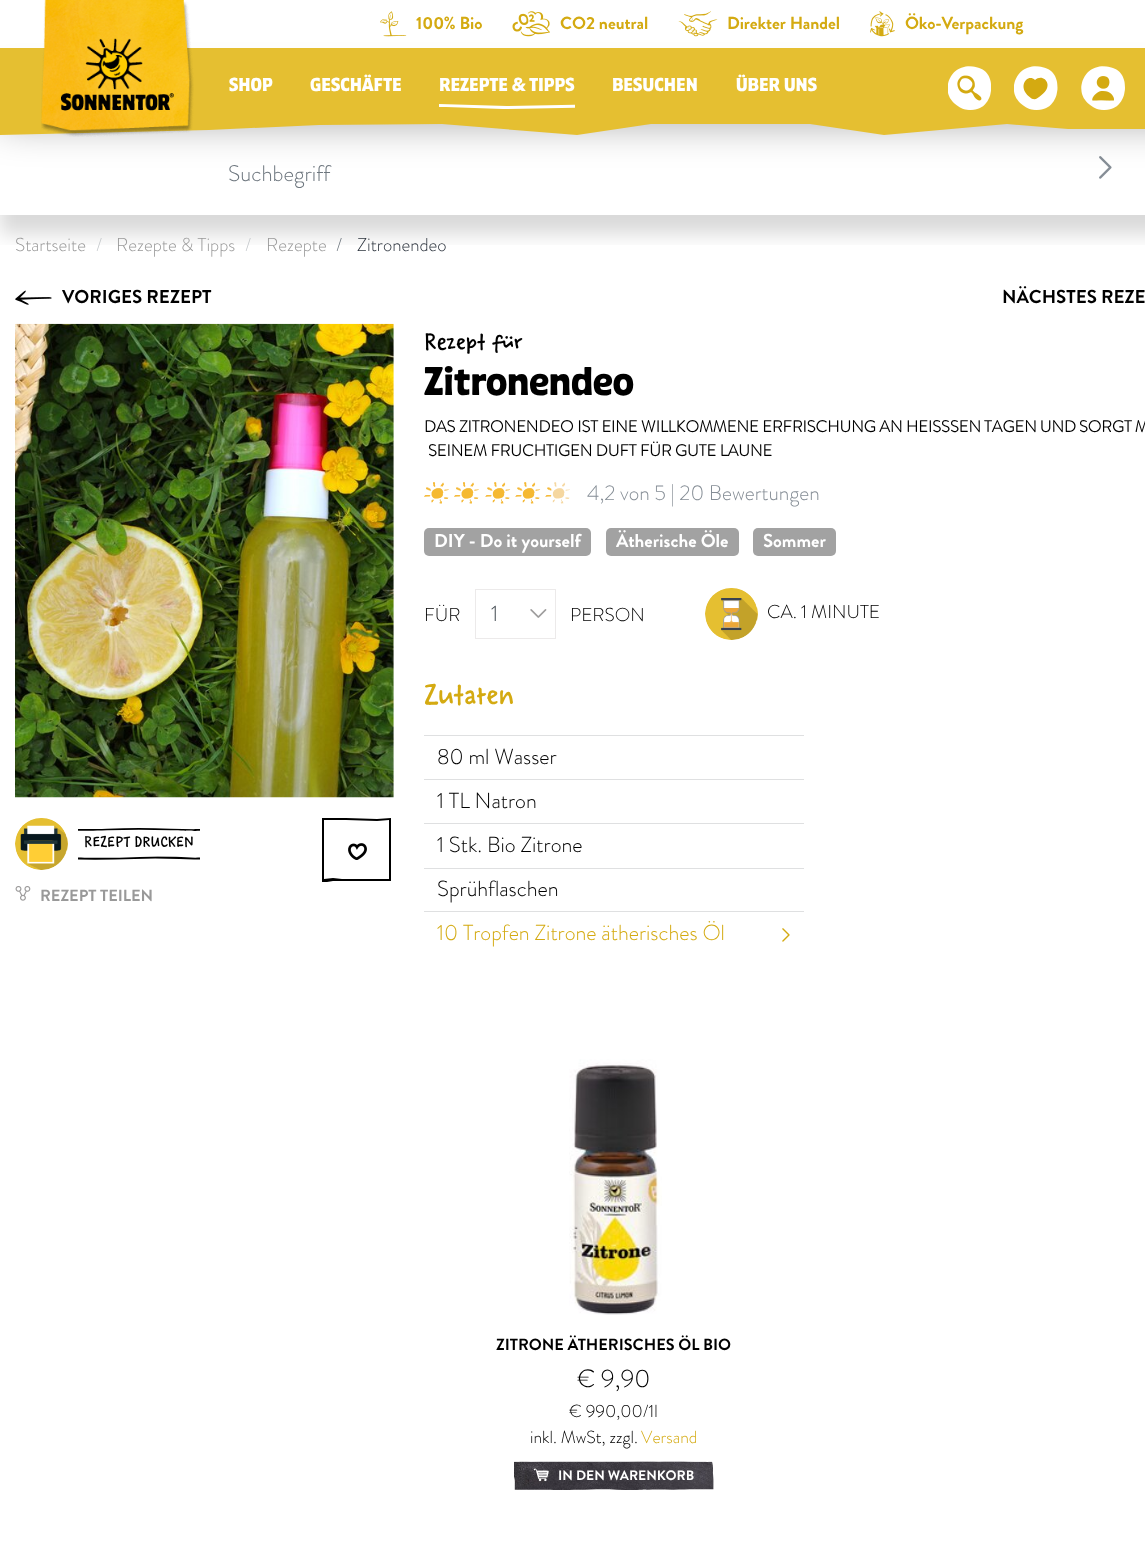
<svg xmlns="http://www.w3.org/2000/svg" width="1145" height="1557">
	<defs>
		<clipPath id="clip1"><rect x="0" y="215" width="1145" height="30" /></clipPath>
		<clipPath id="clip2"><rect x="439" y="103" width="136" height="7" /></clipPath>
	</defs>
	<rect width="100%" height="100%" fill="#FFFFFF" />
	<image x="380" y="11" width="27" height="26" href="assets/img1.png" />
	<text x="416" y="29" font-family="Brandon Grotesque" font-size="17.5" font-weight="700" fill="#D4AA11">100% Bio</text>
	<image x="512" y="11" width="38" height="26" href="assets/img2.png" />
	<text x="560" y="29" font-family="Brandon Grotesque" font-size="17.5" font-weight="700" fill="#D4AA11">CO2 neutral</text>
	<image x="678" y="11" width="40" height="26" href="assets/img3.png" />
	<text x="727" y="29" font-family="Brandon Grotesque" font-size="17.5" font-weight="700" fill="#D4AA11">Direkter Handel</text>
	<image x="870" y="11" width="25" height="26" href="assets/img4.png" />
	<text x="905" y="29" font-family="Brandon Grotesque" font-size="17.5" font-weight="700" fill="#D4AA11">Öko-Verpackung</text>
	<g clip-path="url(#clip1)">
		<rect x="0" y="139" width="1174" height="95" fill="#000000" fill-opacity="0.15" filter="blur(9.5px)" />
	</g>
	<image x="1099" y="156" width="13" height="23" href="assets/img11.png" />
	<rect x="0" y="85" width="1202" height="40" fill="#000000" fill-opacity="0.33" filter="blur(19px)" />
	<path d="M0 48H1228V120L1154 129H1068L1007 124L884 135L810 124H651L577 135L442 124L319 125L209 130L0 135Z" fill="#E5BF31" />
	<image x="41" y="0" width="153" height="137" href="assets/img5.png" />
	<g font-family="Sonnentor" font-size="18.75" font-weight="800" fill="#FFFFFF">
		<text x="229" y="91">SHOP</text>
		<text x="310" y="91">GESCHÄFTE</text>
		<text x="439" y="91">REZEPTE &amp; TIPPS</text>
	</g>
	<g clip-path="url(#clip2)">
		<path d="M507 106L609 104C650 103 691 105 732 106V109L624 107L503 109L446 107H385L282 109V106L386 104C426 103 467 105 507 106Z" fill="#FFFFFF" />
	</g>
	<g font-family="Sonnentor" font-size="18.75" font-weight="800" fill="#FFFFFF">
		<text x="612" y="91">BESUCHEN</text>
		<text x="736" y="91">ÜBER UNS</text>
	</g>
	<image x="948" y="66" width="43" height="44" href="assets/img6.png" />
	<image x="957" y="75" width="25" height="26" href="assets/img7.png" />
	<image x="1014" y="66" width="44" height="44" href="assets/img8.png" />
	<path d="M1041.5 95C1036.5 99 1034.5 101.5 1029 96.5C1017 86.5 1027.5 73 1035 80C1043 72.5 1055 85 1041.5 95Z" fill="#D4AA11" />
	<image x="1081" y="66" width="44" height="44" href="assets/img9.png" />
	<image x="1092" y="76" width="22" height="25" href="assets/img10.png" />
	<text x="228" y="181" font-family="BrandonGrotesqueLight" font-size="22.5" font-weight="300" fill="#6C757D">Suchbegriff</text>
	<text x="15" y="251" font-family="BrandonGrotesqueLight" font-size="18.75" font-weight="300" fill="#999999">Startseite</text>
	<text x="96" y="251" font-family="BrandonGrotesqueLight" font-size="18.75" font-weight="300" fill="#C4C8CB">/</text>
	<text x="116" y="251" font-family="BrandonGrotesqueLight" font-size="18.75" font-weight="300" fill="#999999">Rezepte &amp; Tipps</text>
	<text x="245" y="251" font-family="BrandonGrotesqueLight" font-size="18.75" font-weight="300" fill="#C4C8CB">/</text>
	<text x="266" y="251" font-family="BrandonGrotesqueLight" font-size="18.75" font-weight="300" fill="#999999">Rezepte</text>
	<text x="336" y="251" font-family="BrandonGrotesqueLight" font-size="18.75" font-weight="300" fill="#6C757D">/</text>
	<text x="357" y="251" font-family="BrandonGrotesqueLight" font-size="18.75" font-weight="300" fill="#2D343E">Zitronendeo</text>
	<image x="15" y="290" width="37" height="15" href="assets/img12.png" />
	<g font-family="Brandon Grotesque" font-size="18.75" font-weight="700" fill="#000000">
		<text x="62" y="303">VORIGES REZEPT</text>
		<text x="1002" y="303">NÄCHSTES REZE</text>
	</g>
	<image x="15" y="323" width="379" height="475" href="assets/img13.png" />
	<rect x="15" y="818" width="53" height="52" rx="26" fill="#E5BF31" />
	<image x="15" y="818" width="53" height="52" href="assets/img14.png" />
	<image x="78" y="828" width="122" height="3" href="assets/img15.png" />
	<text x="84" y="847" font-family="Sonnentor" font-size="16.25" fill="#000000">REZEPT DRUCKEN</text>
	<image x="78" y="856" width="122" height="4" href="assets/img16.png" />
	<path d="M327 882H322V818H346L377 819L391 818V881H333ZM342 879L333 878L324 879V820H346L377 821L389 820V879Z" fill="#000000" fill-rule="evenodd" />
	<image x="348" y="843" width="19" height="17" href="assets/img17.png" />
	<image x="15" y="886" width="16" height="15" href="assets/img18.png" />
	<text x="40" y="901" font-family="Brandon Grotesque" font-size="16.25" font-weight="700" fill="#999999">REZEPT TEILEN</text>
	<text x="424" y="350" font-family="Sonnentor" font-size="25" fill="#000000">Rezept für</text>
	<text x="424" y="395" font-family="Sonnentor" font-size="40" font-weight="800" fill="#000000">Zitronendeo</text>
	<g font-family="BrandonGrotesqueLight" font-size="16.25" font-weight="700" fill="#000000">
		<text x="424" y="432">DAS ZITRONENDEO IST EINE WILLKOMMENE ERFRISCHUNG AN HEISS</text>
		<text x="950" y="432" word-spacing="-0.5">SEN TAGEN UND SORGT M</text>
		<text x="428" y="456">SEINEM FRUCHTIGEN DUFT FÜR GUTE LAUNE</text>
	</g>
	<image x="424" y="482" width="25" height="22" href="assets/img19.png" />
	<image x="424" y="482" width="25" height="22" href="assets/img20.png" />
	<image x="454" y="482" width="25" height="22" href="assets/img19.png" />
	<image x="454" y="482" width="25" height="22" href="assets/img20.png" />
	<image x="485" y="482" width="25" height="22" href="assets/img23.png" />
	<image x="485" y="482" width="26" height="22" href="assets/img21.png" />
	<image x="515" y="482" width="25" height="22" href="assets/img23.png" />
	<image x="515" y="482" width="26" height="22" href="assets/img21.png" />
	<image x="545" y="482" width="25" height="22" href="assets/img23.png" />
	<image x="545" y="487" width="6" height="10" href="assets/img22.png" />
	<text x="587" y="500" font-family="BrandonGrotesqueLight" font-size="21.25" font-weight="300" fill="#868E96">4,2 von 5 | 20 Bewertungen</text>
	<rect x="424" y="528" width="167" height="28" rx="5" fill="#A2A2A2" />
	<text x="434" y="547" font-family="Brandon Grotesque" font-size="18.75" font-weight="700" fill="#FFFFFF">DIY - Do it yourself</text>
	<rect x="606" y="528" width="133" height="28" rx="5" fill="#A2A2A2" />
	<text x="616" y="547" font-family="Brandon Grotesque" font-size="18.75" font-weight="700" fill="#FFFFFF">Ätherische Öle</text>
	<rect x="753" y="528" width="83" height="28" rx="5" fill="#A2A2A2" />
	<text x="763" y="547" font-family="Brandon Grotesque" font-size="18.75" font-weight="700" fill="#FFFFFF">Sommer</text>
	<text x="424" y="621" font-family="BrandonGrotesqueLight" font-size="18.75" font-weight="300" fill="#000000">FÜR</text>
	<rect x="475.5" y="589.5" width="80" height="49" fill="none" stroke="#ECEAEA" />
	<text x="491" y="621" font-family="BrandonGrotesqueLight" font-size="22.5" font-weight="300" fill="#495057">1</text>
	<image x="530" y="609" width="17" height="9" href="assets/img24.png" />
	<text x="570" y="621" font-family="BrandonGrotesqueLight" font-size="18.75" font-weight="300" fill="#000000">PERSON</text>
	<rect x="705" y="588" width="53" height="52" rx="26" fill="#E5BF31" />
	<image x="705" y="588" width="53" height="52" href="assets/img25.png" />
	<text x="767" y="618" font-family="BrandonGrotesqueLight" font-size="18.75" font-weight="300" fill="#000000">CA. 1 MINUTE</text>
	<text x="424" y="705" font-family="Sonnentor" font-size="31" fill="#D4AA11">Zutaten</text>
	<rect x="424" y="735" width="380" height="1" fill="#DFE0E1" />
	<text x="437" y="764" font-family="BrandonGrotesqueLight" font-size="21.9" font-weight="300" fill="#000000">80 ml Wasser</text>
	<rect x="424" y="779" width="380" height="1" fill="#DFE0E1" />
	<text x="437" y="808" font-family="BrandonGrotesqueLight" font-size="21.9" font-weight="300" fill="#000000">1 TL Natron</text>
	<rect x="424" y="823" width="380" height="1" fill="#DFE0E1" />
	<text x="437" y="852" font-family="BrandonGrotesqueLight" font-size="21.9" font-weight="300" fill="#000000">1 Stk. Bio Zitrone</text>
	<rect x="424" y="868" width="380" height="1" fill="#DFE0E1" />
	<text x="437" y="896" font-family="BrandonGrotesqueLight" font-size="21.9" font-weight="300" fill="#000000">Sprühflaschen</text>
	<rect x="424" y="911" width="380" height="1" fill="#DFE0E1" />
	<text x="437" y="940" font-family="BrandonGrotesqueLight" font-size="21.9" font-weight="300" fill="#D4AA11">10 Tropfen Zitrone ätherisches Öl</text>
	<image x="782" y="928" width="8" height="14" href="assets/img26.png" />
	<image x="569" y="1059" width="93" height="256" href="assets/img27.png" />
	<text x="496" y="1350" font-family="Brandon Grotesque" font-size="16.25" font-weight="700" fill="#000000">ZITRONE ÄTHERISCHES ÖL BIO</text>
	<text x="577" y="1387" font-family="BrandonGrotesqueLight" font-size="25" font-weight="300" fill="#000000">€ 9,90</text>
	<g font-family="BrandonGrotesqueLight" font-size="17.5" font-weight="300" fill="#000000">
		<text x="569" y="1417">€ 990,00/1l</text>
		<text x="530" y="1443">inkl. MwSt, zzgl.</text>
	</g>
	<text x="641" y="1443" font-family="BrandonGrotesqueLight" font-size="17.5" font-weight="300" fill="#D4AA11">Versand</text>
	<image x="514" y="1461" width="200" height="29" href="assets/img28.png" />
	<image x="533" y="1468" width="16" height="14" href="assets/img29.png" />
	<text x="558" y="1480" font-family="Brandon Grotesque" font-size="13.75" font-weight="700" fill="#FFFFFF">IN DEN WARENKORB</text>
</svg>
